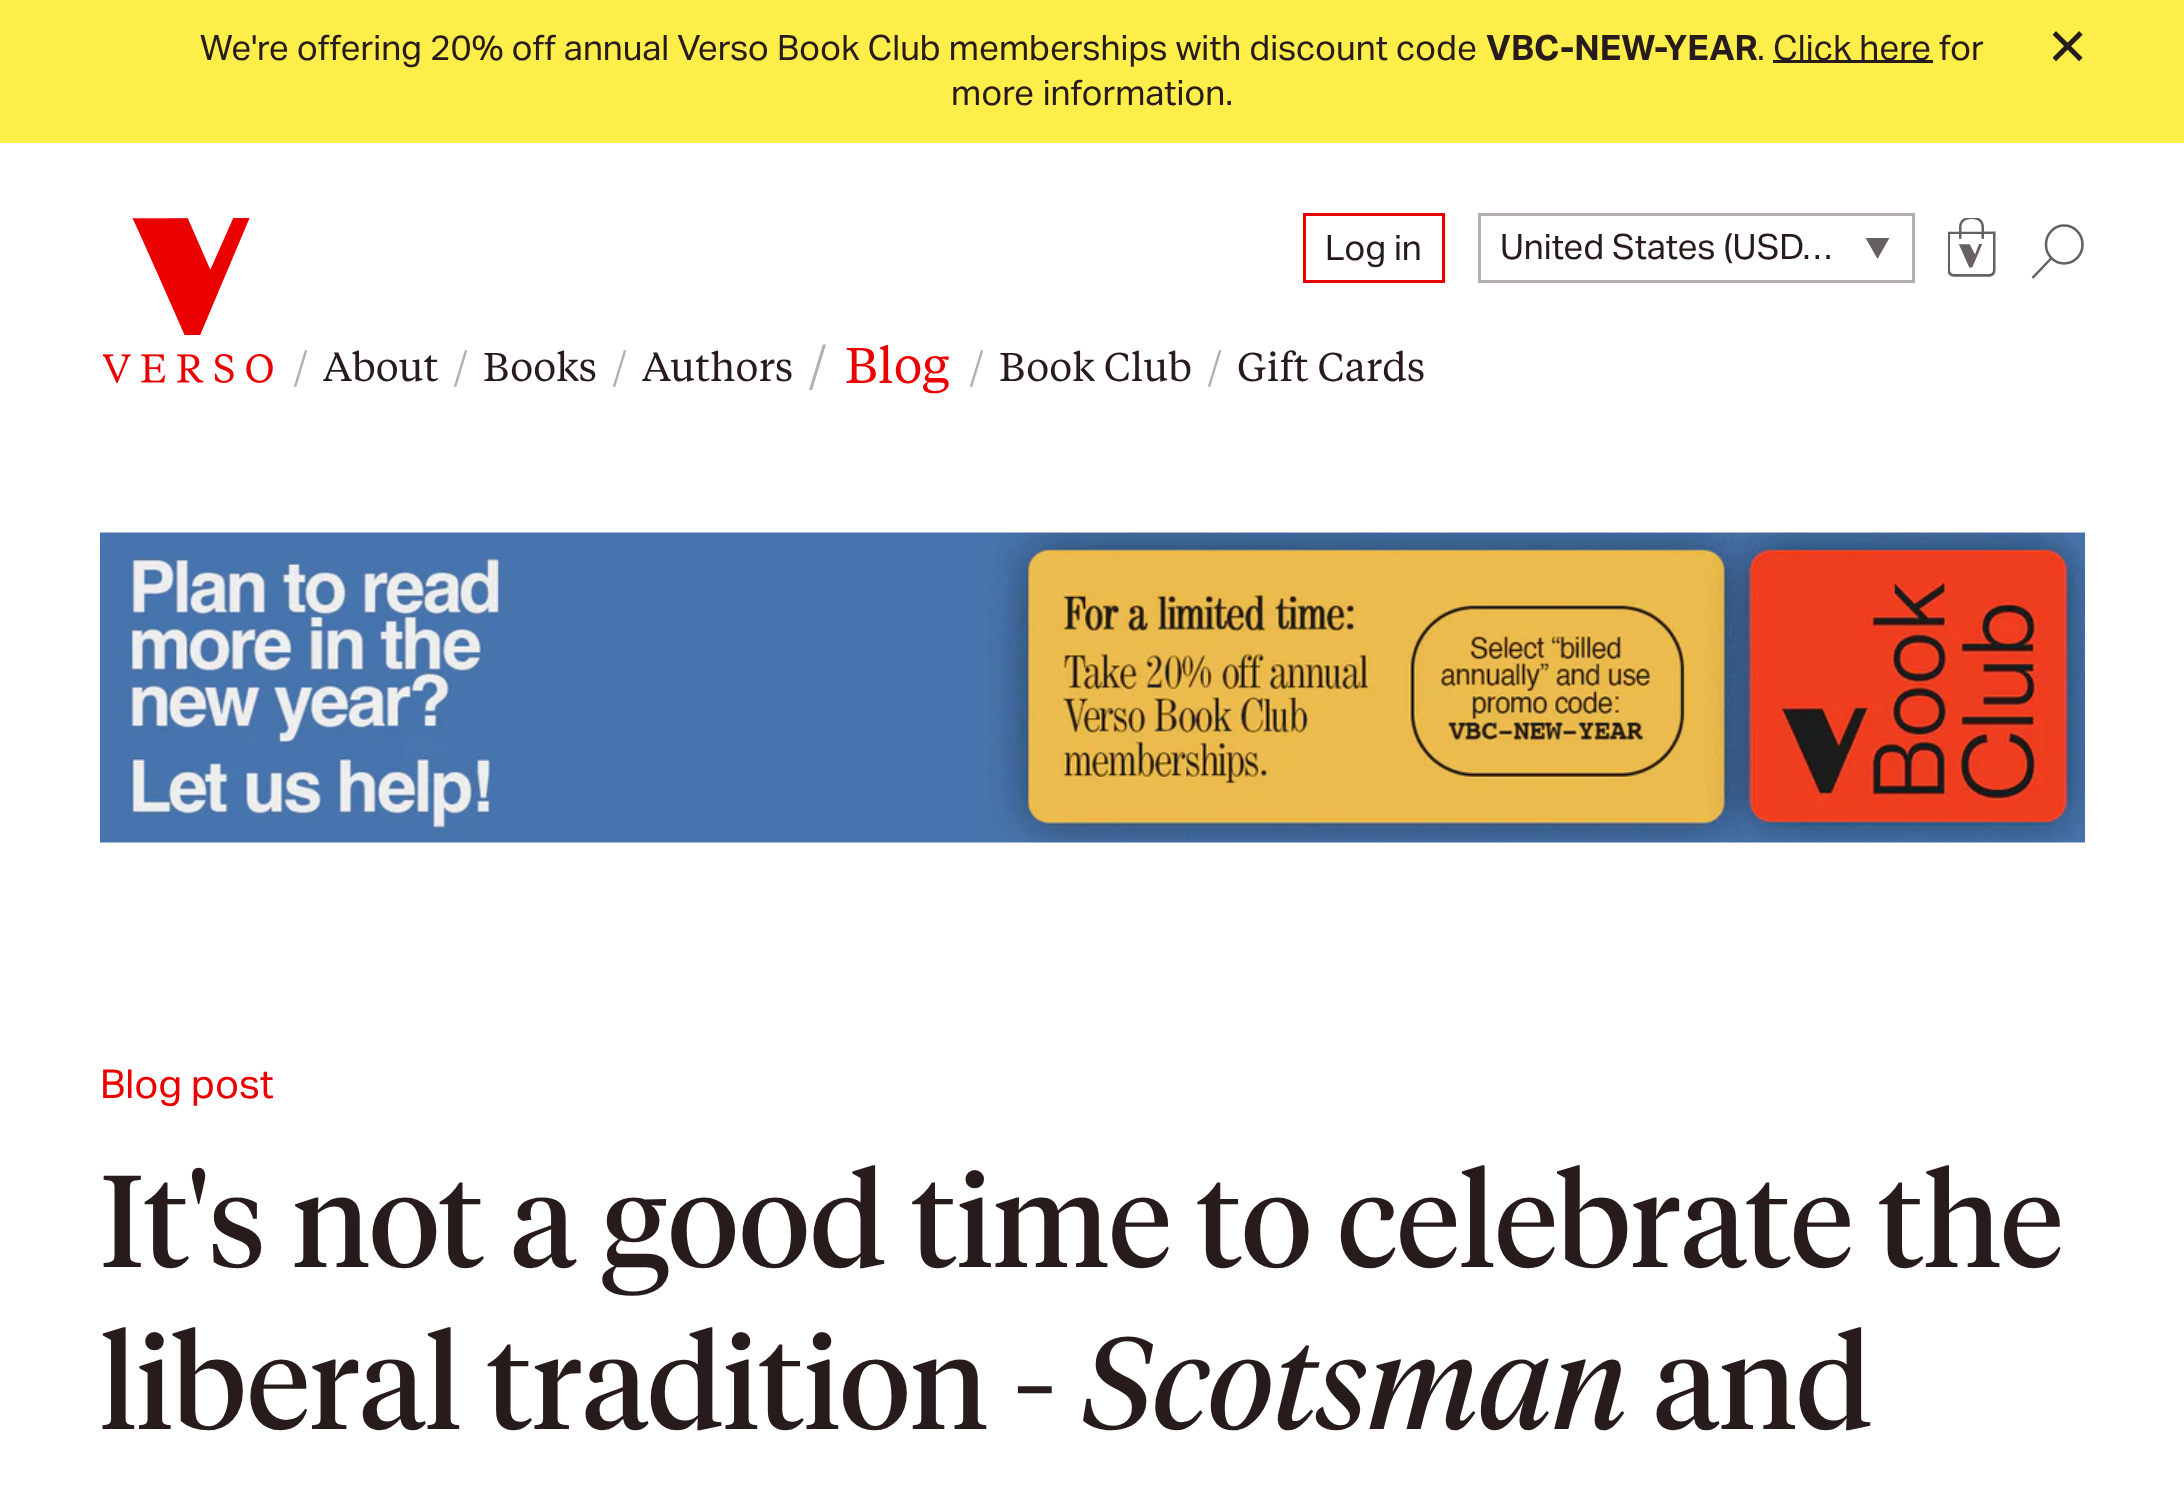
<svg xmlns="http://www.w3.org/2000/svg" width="2184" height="1502">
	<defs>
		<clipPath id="clip1"><rect x="1863" y="238" width="30" height="22" /></clipPath>
	</defs>
	<rect width="100%" height="100%" fill="#FFFFFF" />
	<rect x="0" y="0" width="2184" height="143" fill="#FDEE49" />
	<text x="200" y="60" word-spacing="0.25" font-family="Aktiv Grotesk" font-size="35" fill="#271B1B">We're offering 20% off annual Verso Book Club memberships with discount code</text>
	<text x="1486" y="60" font-family="Aktiv Grotesk" font-size="35" font-weight="700" fill="#271B1B">VBC-NEW-YEAR</text>
	<text x="1757" y="60" font-family="Aktiv Grotesk" font-size="35" fill="#271B1B">.</text>
	<rect x="1773" y="60" width="160" height="3" fill="#271B1B" />
	<g font-family="Aktiv Grotesk" font-size="35" fill="#271B1B">
		<text x="1773" y="60">Click here</text>
		<text x="1939" y="60">for</text>
		<text x="951" y="105" word-spacing="1">more information.</text>
	</g>
	<image x="2053" y="31" width="30" height="31" href="assets/img1.png" />
	<rect x="1304.5" y="214.5" width="139" height="67" fill="none" stroke="#EB0000" stroke-width="3" />
	<text x="1325" y="260" font-family="Aktiv Grotesk" font-size="35" fill="#271B1B">Log in</text>
	<rect x="1479.5" y="214.5" width="434" height="67" fill="none" stroke="#B6AFAF" stroke-width="3" />
	<text x="1500" y="259" font-family="Aktiv Grotesk" font-size="35" fill="#271B1B">United States (USD…</text>
	<g clip-path="url(#clip1)">
		<path d="M1877.5 259L1864.5 236H1890.5Z" fill="#666060" />
	</g>
	<image x="1948" y="218" width="48" height="59" href="assets/img2.png" />
	<path d="M2052 257.5L2032.5 278M2082.5 244.5C2082.5 255 2074.5 263.5 2064 263.5C2054 263.5 2046 255 2046 244.5C2046 234 2054 225.5 2064 225.5C2074.5 225.5 2082.5 234 2082.5 244.5Z" fill="none" stroke="#666060" stroke-width="2.5" />
	<image x="103" y="218" width="170" height="165" href="assets/img3.png" />
	<text x="293" y="381" font-family="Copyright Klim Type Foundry" font-size="40" fill="#B6AFAF">/</text>
	<text x="323" y="381" font-family="Copyright Klim Type Foundry" font-size="40" fill="#271B1B">About</text>
	<text x="453" y="381" font-family="Copyright Klim Type Foundry" font-size="40" fill="#B6AFAF">/</text>
	<text x="483" y="381" font-family="Copyright Klim Type Foundry" font-size="40" fill="#271B1B">Books</text>
	<text x="612" y="381" font-family="Copyright Klim Type Foundry" font-size="40" fill="#B6AFAF">/</text>
	<text x="642" y="381" font-family="Copyright Klim Type Foundry" font-size="40" fill="#271B1B">Authors</text>
	<text x="808" y="383" font-family="Copyright Klim Type Foundry" font-size="50" fill="#B6AFAF">/</text>
	<text x="845" y="383" font-family="Copyright Klim Type Foundry" font-size="50" fill="#EB0000">Blog</text>
	<text x="969" y="381" font-family="Copyright Klim Type Foundry" font-size="40" fill="#B6AFAF">/</text>
	<text x="999" y="381" font-family="Copyright Klim Type Foundry" font-size="40" fill="#271B1B">Book Club</text>
	<text x="1207" y="381" font-family="Copyright Klim Type Foundry" font-size="40" fill="#B6AFAF">/</text>
	<text x="1237" y="381" font-family="Copyright Klim Type Foundry" font-size="40" fill="#271B1B">Gift Cards</text>
	<image x="100" y="532" width="1985" height="311" href="assets/img4.png" />
	<text x="100" y="1098" font-family="Aktiv Grotesk" font-size="40" fill="#EB0000">Blog post</text>
	<g font-family="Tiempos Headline" font-size="130" fill="#271B1B">
		<text x="100" y="1267">It's not a good time to celebrate the</text>
		<text x="100" y="1429">liberal tradition -</text>
	</g>
	<text x="1082" y="1429" font-family="Tiempos Headline" font-size="130" font-style="italic" fill="#271B1B">Scotsman</text>
	<text x="1653" y="1429" font-family="Tiempos Headline" font-size="130" fill="#271B1B">and</text>
</svg>
